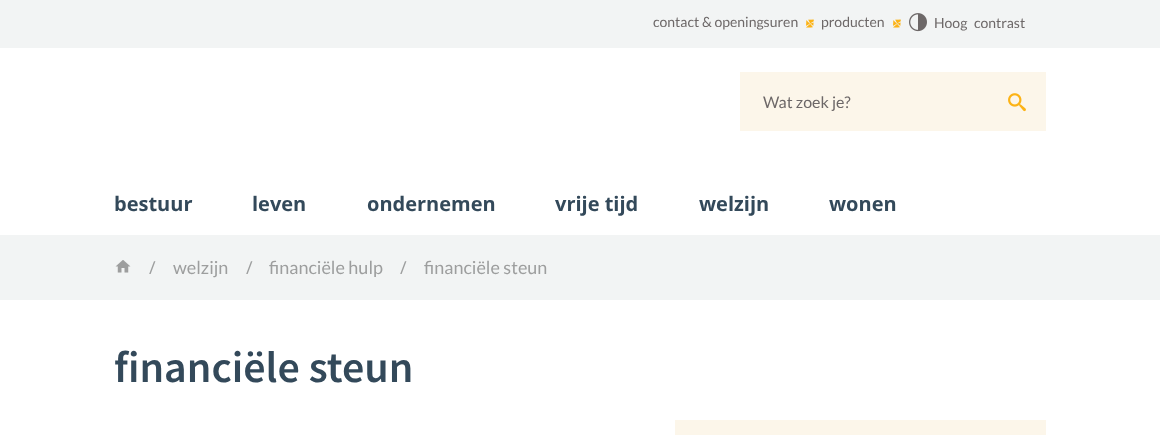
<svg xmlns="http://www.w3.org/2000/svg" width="1160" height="435">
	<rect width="100%" height="100%" fill="#FFFFFF" />
	<rect x="0" y="0" width="1160" height="48" fill="#F2F4F4" />
	<text x="653" y="27" font-family="Lato" font-size="14" fill="#6D6868">contact &amp; openingsuren</text>
	<image x="806" y="19" width="8" height="9" href="assets/img1.png" />
	<text x="821" y="27" font-family="Lato" font-size="14" fill="#6D6868">producten</text>
	<image x="893" y="19" width="8" height="9" href="assets/img1.png" />
	<image x="909" y="13" width="18" height="19" href="assets/img2.png" />
	<text x="934" y="28" word-spacing="4" font-family="Lato" font-size="14" fill="#6D6868">Hoog contrast</text>
	<rect x="740" y="72" width="306" height="59" fill="#FCF6EA" />
	<image x="1008" y="93" width="18" height="19" href="assets/img3.png" />
	<text x="763" y="108" font-family="Lato" font-size="16" fill="#6D6868">Wat zoek je?</text>
	<g font-family="Open Sans" font-size="20" font-weight="700" fill="#33495A">
		<text x="114" y="211">bestuur</text>
		<text x="252" y="211">leven</text>
		<text x="367" y="211">ondernemen</text>
		<text x="555" y="211">vrije tijd</text>
		<text x="699" y="211">welzijn</text>
		<text x="829" y="211">wonen</text>
	</g>
	<rect x="0" y="235" width="1160" height="65" fill="#F2F4F4" />
	<image x="115" y="260" width="16" height="13" href="assets/img4.png" />
	<text x="149" y="274" font-family="Open Sans" font-size="18" fill="#9D9E9E">/</text>
	<text x="173" y="274" font-family="Lato" font-size="18" fill="#9D9E9E">welzijn</text>
	<text x="246" y="274" font-family="Open Sans" font-size="18" fill="#9D9E9E">/</text>
	<text x="269" y="274" font-family="Lato" font-size="18" fill="#9D9E9E">financiële hulp</text>
	<text x="400" y="274" font-family="Open Sans" font-size="18" fill="#9D9E9E">/</text>
	<text x="424" y="274" font-family="Lato" font-size="18" fill="#9D9E9E">financiële steun</text>
	<text x="114" y="382" font-family="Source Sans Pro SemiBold" font-size="44" font-weight="600" fill="#33495A">financiële steun</text>
	<rect x="675" y="420" width="371" height="15" fill="#FCF6EA" />
</svg>
